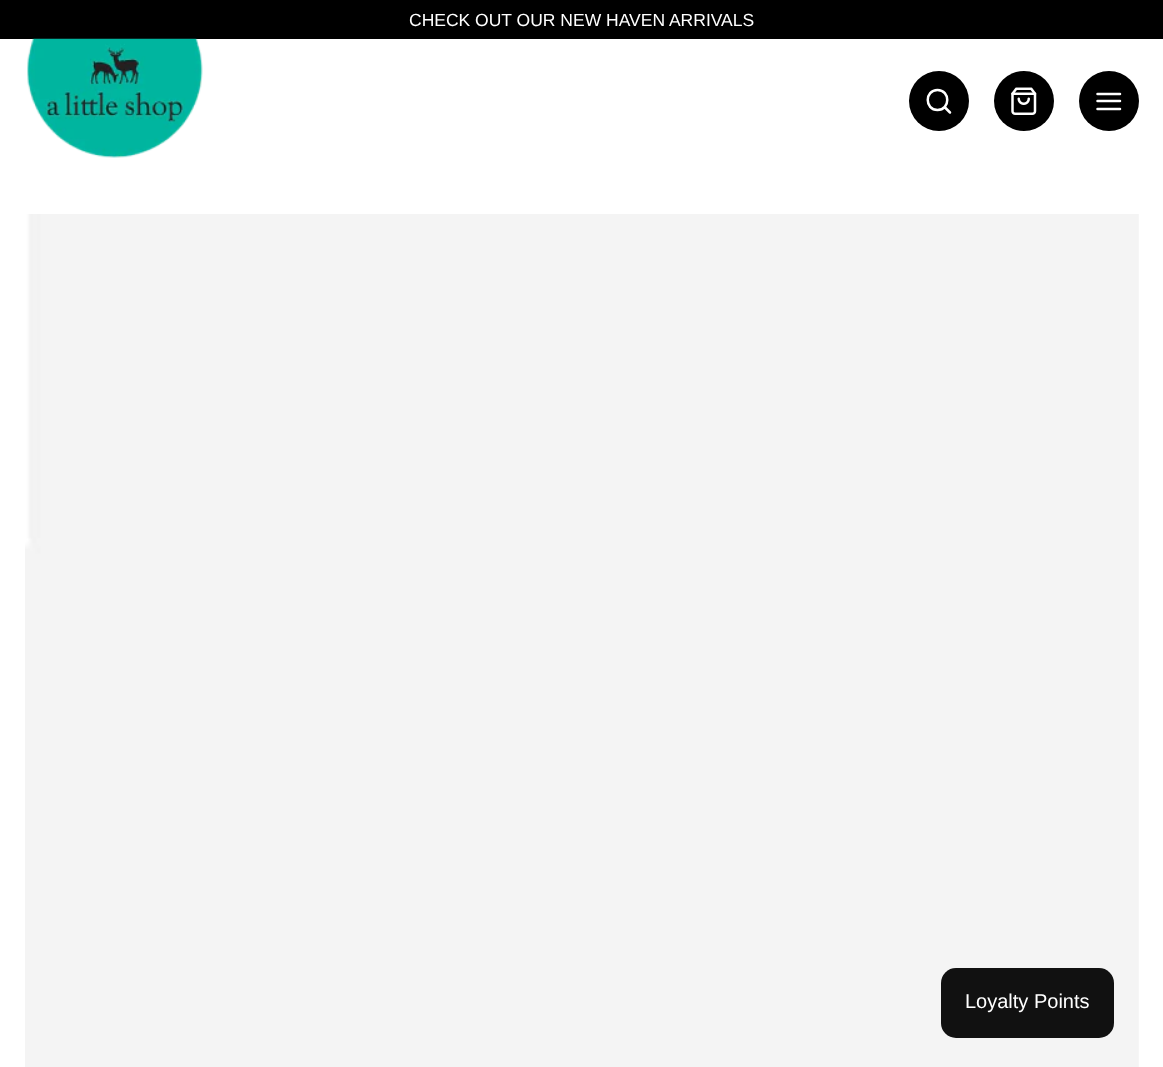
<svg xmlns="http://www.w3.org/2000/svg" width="1163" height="1067">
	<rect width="100%" height="100%" fill="#FFFFFF" />
	<rect x="0" y="0" width="1163" height="39" fill="#000000" />
	<text x="409" y="26" font-family="Liberation Sans" font-size="17.5" fill="#FFFFFF">CHECK OUT OUR NEW HAVEN ARRIVALS</text>
	<image x="27" y="38" width="176" height="120" href="assets/img1.png" />
	<circle cx="939" cy="101" r="30" fill="#000000" />
	<path d="M937.5 110C950.5 110 950.5 90 937.5 90C924.5 90 924.5 110 937.5 110ZM950 112.5L944.5 107" fill="none" stroke="#FFFFFF" stroke-width="2.5" stroke-linecap="round" stroke-linejoin="round" />
	<circle cx="1024" cy="101" r="30" fill="#000000" />
	<image x="1011" y="87" width="26" height="28" href="assets/img2.png" />
	<circle cx="1109" cy="101" r="30" fill="#000000" />
	<path d="M1097.5 101H1120M1097.5 94H1120M1097.5 109H1120" fill="none" stroke="#FFFFFF" stroke-width="2.5" stroke-linecap="round" stroke-linejoin="round" />
	<image x="25" y="214" width="1114" height="853" href="assets/img3.png" />
	<rect x="941" y="968" width="173" height="70" rx="15" fill="#111111" />
	<text x="965" y="1008" font-family="Liberation Sans" font-size="20" fill="#FFFFFF">Loyalty Points</text>
</svg>
